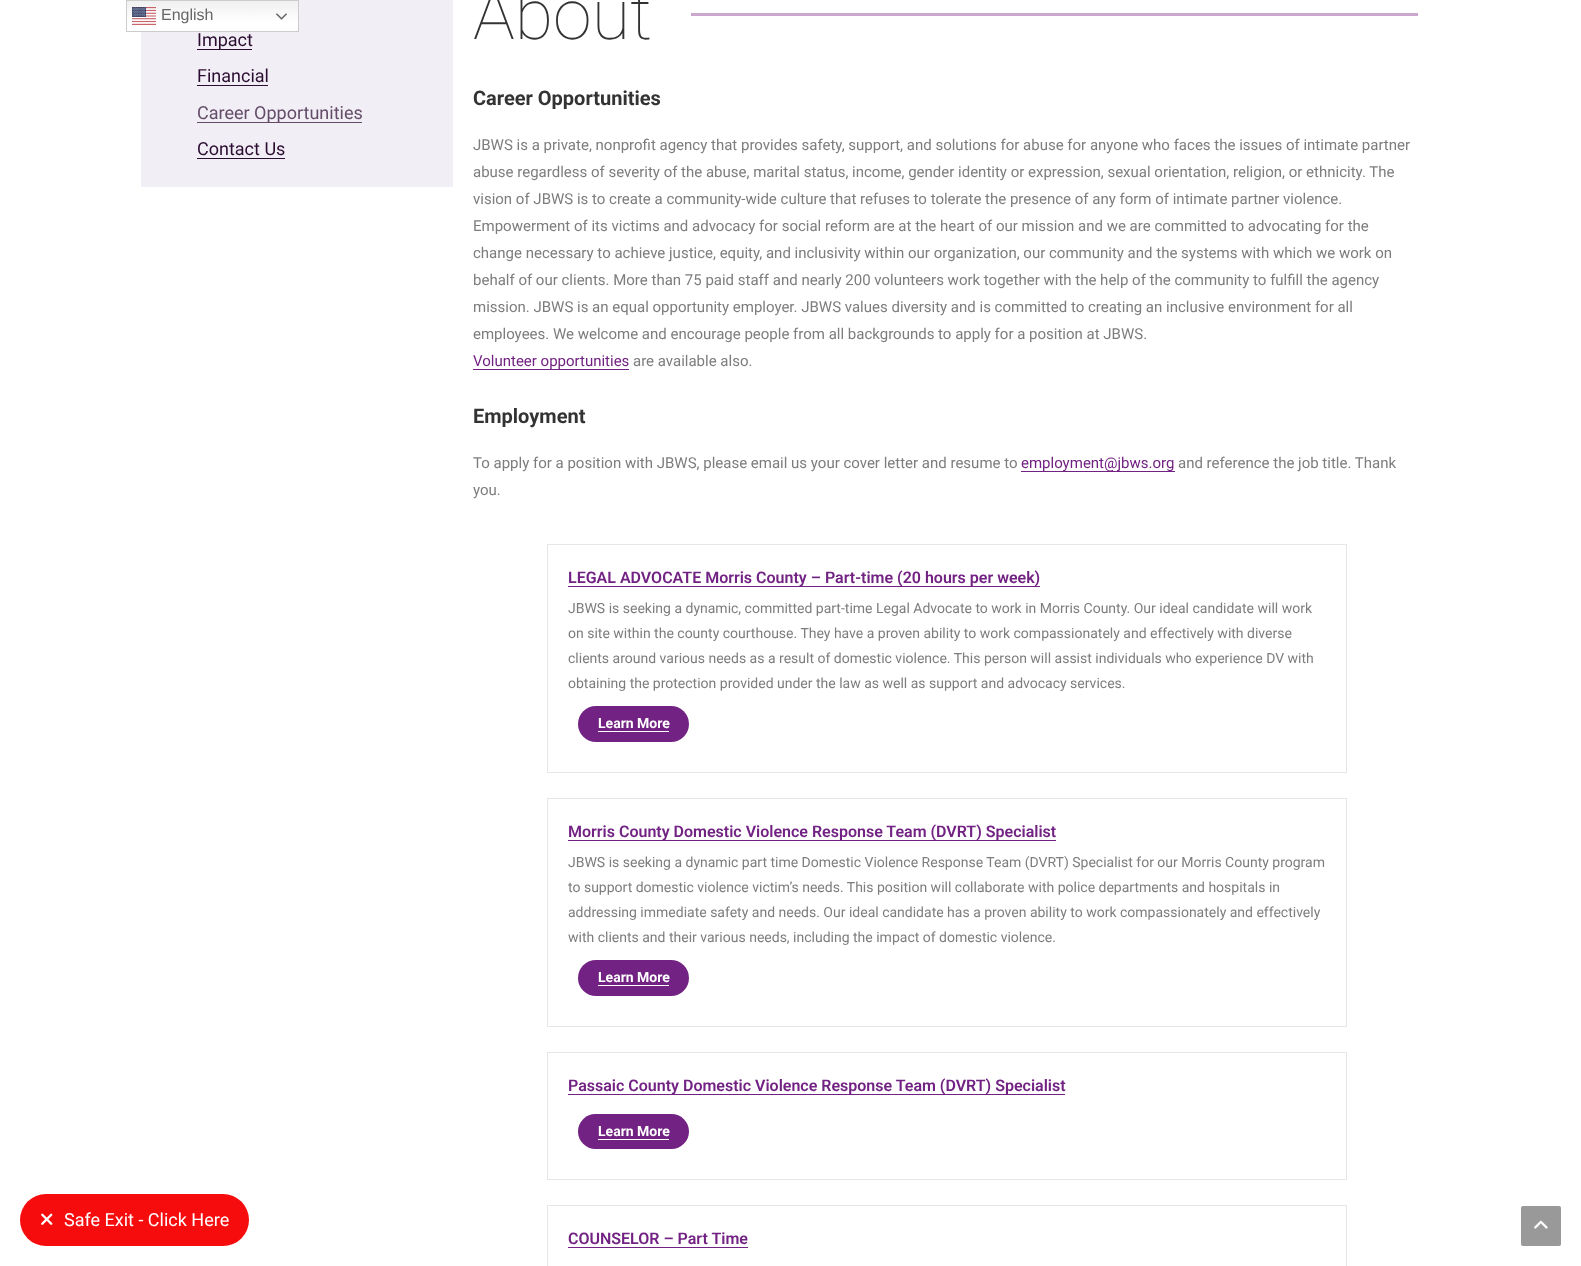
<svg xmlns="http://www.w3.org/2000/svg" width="1581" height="1266">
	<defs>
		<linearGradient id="g1" gradientUnits="userSpaceOnUse" x1="213" y1="0" x2="213" y2="32"><stop offset="0" stop-color="#EFEFEF" /><stop offset="0.7" stop-color="#FFFFFF" /></linearGradient>
	</defs>
	<rect width="100%" height="100%" fill="#FFFFFF" />
	<rect x="141" y="0" width="312" height="187" fill="#F2EEF5" />
	<rect x="127" y="1" width="171" height="30" fill="url(#g1)" />
	<rect x="126.5" y="0.5" width="172" height="31" fill="none" stroke="#CCCCCC" />
	<image x="132" y="7" width="24" height="18" href="assets/img1.png" />
	<text x="161" y="20" font-family="Liberation Sans" font-size="16" fill="#666666">English</text>
	<image x="276" y="13" width="11" height="7" href="assets/img2.png" />
	<rect x="197" y="49" width="55" height="1" fill="#2B0D31" />
	<g font-family="Roboto" font-size="18" fill="#2B0D31">
		<text x="197" y="46">Impact</text>
		<text x="197" y="82">Financial</text>
	</g>
	<rect x="197" y="85" width="71" height="1" fill="#2B0D31" />
	<rect x="197" y="122" width="165" height="1" fill="#634C68" />
	<text x="197" y="119" font-family="Roboto" font-size="18" fill="#634C68">Career Opportunities</text>
	<text x="197" y="155" font-family="Roboto" font-size="18" fill="#2B0D31">Contact Us</text>
	<rect x="197" y="158" width="88" height="1" fill="#2B0D31" />
	<text x="473" y="39" font-family="Roboto" font-size="70" font-weight="100" fill="#333333">About</text>
	<rect x="691" y="13" width="727" height="3" fill="#CBA7CD" />
	<text x="473" y="105" font-family="Roboto" font-size="20" font-weight="700" fill="#333333">Career Opportunities</text>
	<g font-family="Roboto" font-size="15" fill="#7D7D7D">
		<text x="473" y="150">JBWS is a private, nonprofit agency that provides safety, support, and solutions for abuse for anyone who faces the issues of intimate partner</text>
		<text x="473" y="177">abuse regardless of severity of the abuse, marital status, income, gender identity or expression, sexual orientation, religion, or ethnicity. The</text>
		<text x="473" y="204">vision of JBWS is to create a community-wide culture that refuses to tolerate the presence of any form of intimate partner violence.</text>
		<text x="473" y="231">Empowerment of its victims and advocacy for social reform are at the heart of our mission and we are committed to advocating for the</text>
		<text x="473" y="258">change necessary to achieve justice, equity, and inclusivity within our organization, our community and the systems with which we work on</text>
		<text x="473" y="285">behalf of our clients. More than 75 paid staff and nearly 200 volunteers work together with the help of the community to fulfill the agency</text>
		<text x="473" y="312">mission. JBWS is an equal opportunity employer. JBWS values diversity and is committed to creating an inclusive environment for all</text>
		<text x="473" y="339">employees. We welcome and encourage people from all backgrounds to apply for a position at JBWS.</text>
	</g>
	<rect x="473" y="369" width="156" height="1" fill="#722282" />
	<text x="473" y="366" font-family="Roboto" font-size="15" fill="#722282">Volunteer opportunities</text>
	<text x="633" y="366" font-family="Roboto" font-size="15" fill="#7D7D7D">are available also.</text>
	<text x="473" y="423" font-family="Roboto" font-size="20" font-weight="700" fill="#333333">Employment</text>
	<text x="473" y="468" font-family="Roboto" font-size="15" fill="#7D7D7D">To apply for a position with JBWS, please email us your cover letter and resume to</text>
	<rect x="1021" y="471" width="154" height="1" fill="#722282" />
	<text x="1021" y="468" font-family="Roboto" font-size="15" fill="#722282">employment@jbws.org</text>
	<g font-family="Roboto" font-size="15" fill="#7D7D7D">
		<text x="1178" y="468">and reference the job title. Thank</text>
		<text x="473" y="495">you.</text>
	</g>
	<rect x="547.5" y="544.5" width="799" height="228" fill="none" stroke="#E6E6E6" />
	<rect x="568" y="586" width="472" height="1" fill="#722282" />
	<text x="568" y="583" font-family="Roboto" font-size="16" font-weight="600" fill="#722282">LEGAL ADVOCATE Morris County – Part-time (20 hours per week)</text>
	<g font-family="Roboto" font-size="14" fill="#7D7D7D">
		<text x="568" y="613">JBWS is seeking a dynamic, committed part-time Legal Advocate to work in Morris County. Our ideal candidate will work</text>
		<text x="568" y="638">on site within the county courthouse. They have a proven ability to work compassionately and effectively with diverse</text>
		<text x="568" y="663">clients around various needs as a result of domestic violence. This person will assist individuals who experience DV with</text>
		<text x="568" y="688">obtaining the protection provided under the law as well as support and advocacy services.</text>
	</g>
	<rect x="578" y="706" width="111" height="36" rx="18" fill="#722282" />
	<text x="598" y="728" font-family="Roboto" font-size="14" font-weight="700" fill="#FFFFFF">Learn More</text>
	<rect x="598" y="731" width="71" height="1" fill="#FFFFFF" />
	<rect x="547.5" y="798.5" width="799" height="228" fill="none" stroke="#E6E6E6" />
	<rect x="568" y="840" width="488" height="1" fill="#722282" />
	<text x="568" y="837" font-family="Roboto" font-size="16" font-weight="600" fill="#722282">Morris County Domestic Violence Response Team (DVRT) Specialist</text>
	<g font-family="Roboto" font-size="14" fill="#7D7D7D">
		<text x="568" y="867">JBWS is seeking a dynamic part time Domestic Violence Response Team (DVRT) Specialist for our Morris County program</text>
		<text x="568" y="892">to support domestic violence victim’s needs. This position will collaborate with police departments and hospitals in</text>
		<text x="568" y="917">addressing immediate safety and needs. Our ideal candidate has a proven ability to work compassionately and effectively</text>
		<text x="568" y="942">with clients and their various needs, including the impact of domestic violence.</text>
	</g>
	<rect x="578" y="960" width="111" height="36" rx="18" fill="#722282" />
	<text x="598" y="982" font-family="Roboto" font-size="14" font-weight="700" fill="#FFFFFF">Learn More</text>
	<rect x="598" y="985" width="71" height="1" fill="#FFFFFF" />
	<rect x="547.5" y="1052.5" width="799" height="127" fill="none" stroke="#E6E6E6" />
	<rect x="568" y="1094" width="497" height="1" fill="#722282" />
	<text x="568" y="1091" font-family="Roboto" font-size="16" font-weight="600" fill="#722282">Passaic County Domestic Violence Response Team (DVRT) Specialist</text>
	<rect x="578" y="1114" width="111" height="35" rx="17.5" fill="#722282" />
	<text x="598" y="1136" font-family="Roboto" font-size="14" font-weight="700" fill="#FFFFFF">Learn More</text>
	<rect x="598" y="1139" width="71" height="1" fill="#FFFFFF" />
	<rect x="547.5" y="1205.5" width="799" height="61" fill="none" stroke="#E6E6E6" />
	<text x="568" y="1244" font-family="Roboto" font-size="16" font-weight="600" fill="#722282">COUNSELOR – Part Time</text>
	<rect x="568" y="1247" width="180" height="1" fill="#722282" />
	<rect x="20" y="1194" width="229" height="52" rx="26" fill="#F60C0C" />
	<image x="41" y="1213" width="12" height="12" href="assets/img3.png" />
	<text x="64" y="1226" font-family="Roboto" font-size="18" fill="#FFFFFF">Safe Exit - Click Here</text>
	<rect x="1521" y="1206" width="40" height="40" rx="2" fill="#999999" />
	<image x="1534" y="1220" width="14" height="9" href="assets/img4.png" />
</svg>
